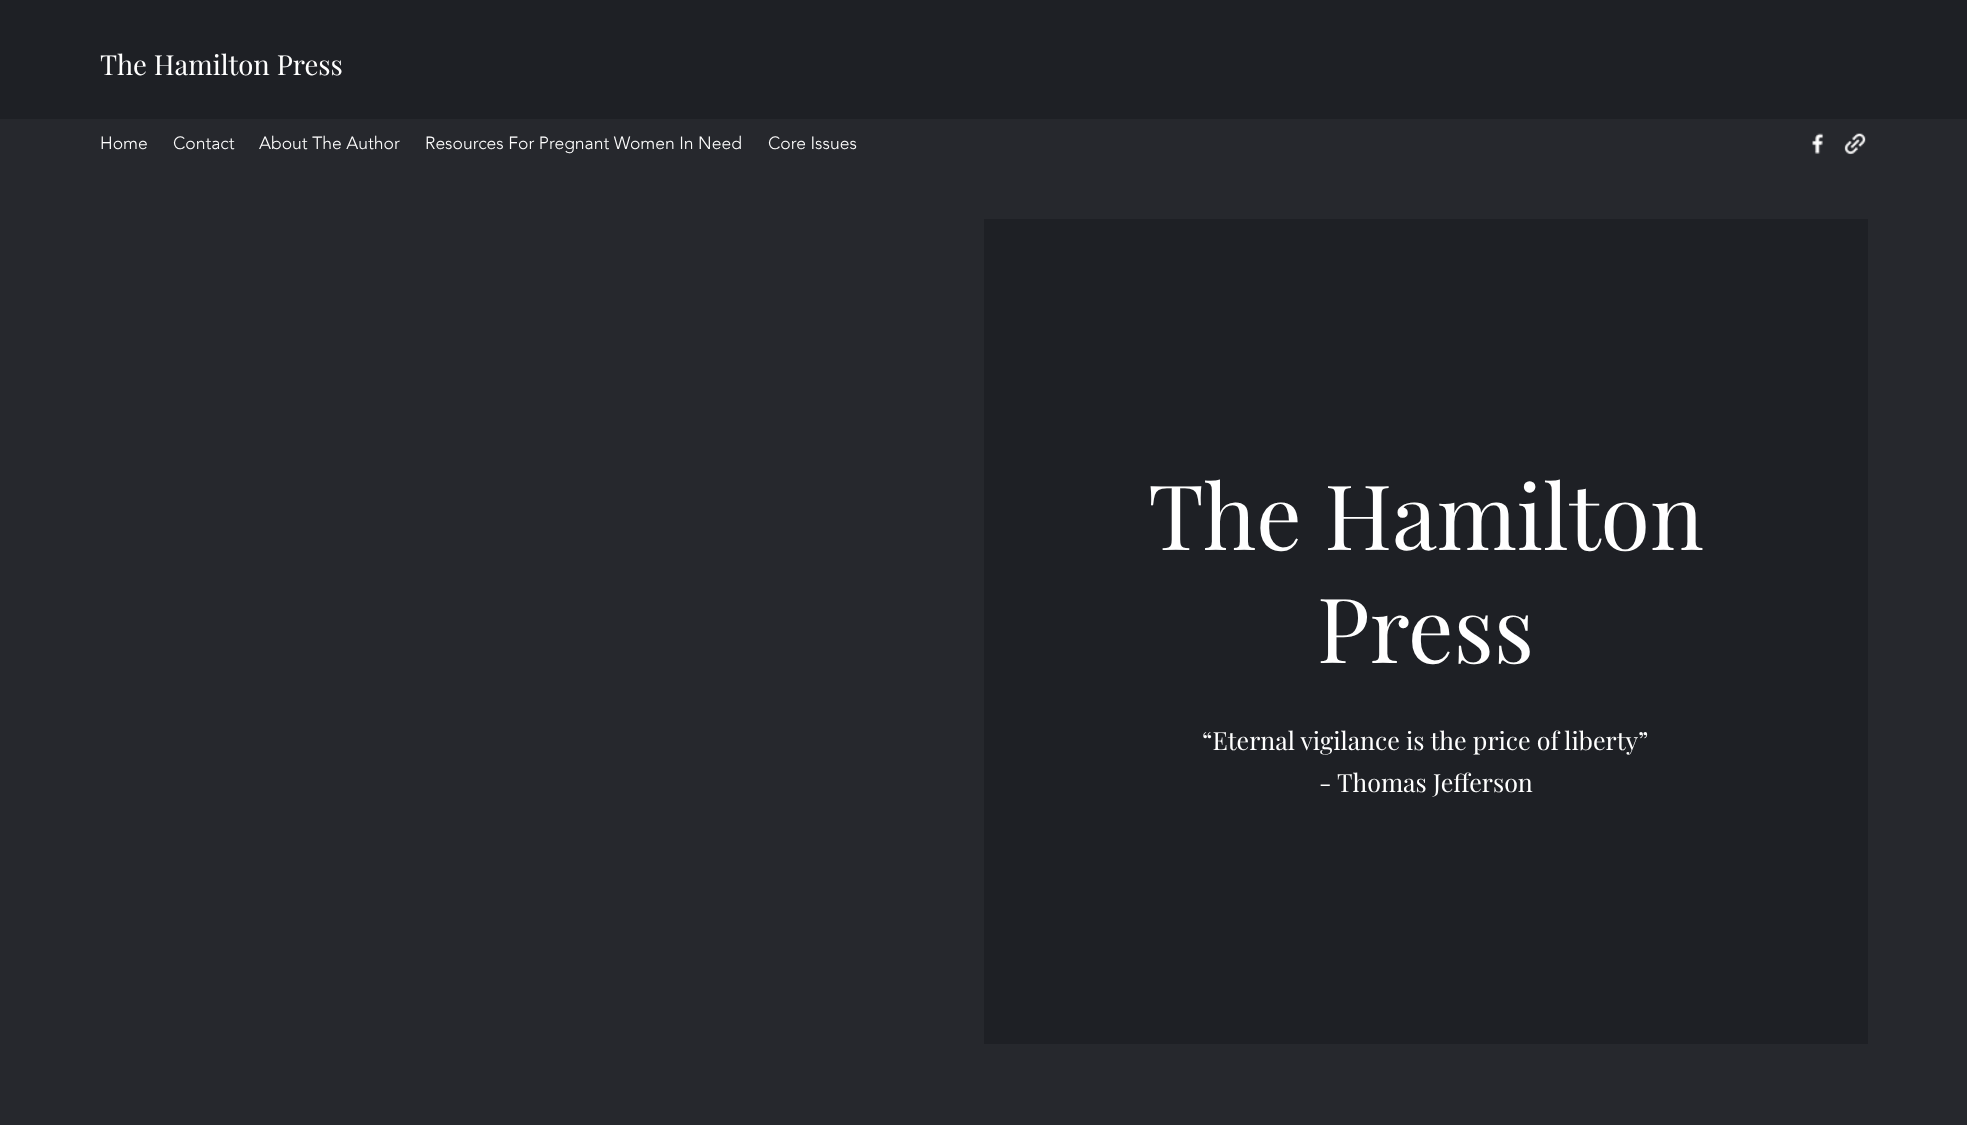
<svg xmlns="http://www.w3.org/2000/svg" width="1967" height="1125">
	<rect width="100%" height="100%" fill="#26282D" />
	<rect x="0" y="0" width="1967" height="119" fill="#1E2025" />
	<text x="100" y="75" font-family="Playfair Display" font-size="27.5" fill="#FFFFFF">The Hamilton Press</text>
	<g font-family="'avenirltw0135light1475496'" font-size="17.5" font-weight="300" fill="#FFFFFF">
		<text x="100" y="149">Home</text>
		<text x="173" y="149">Contact</text>
		<text x="259" y="149">About The Author</text>
		<text x="425" y="149">Resources For Pregnant Women In Need</text>
		<text x="768" y="149">Core Issues</text>
	</g>
	<image x="1812" y="133" width="12" height="21" href="assets/img1.png" />
	<image x="1844" y="133" width="22" height="22" href="assets/img2.png" />
	<rect x="984" y="219" width="884" height="825" fill="#1E2025" />
	<g font-family="Playfair Display" font-size="90" fill="#FFFFFF">
		<text x="1148" y="550">The Hamilton</text>
		<text x="1317" y="663">Press</text>
	</g>
	<g font-family="Playfair Display" font-size="25" fill="#FFFFFF">
		<text x="1202" y="750">“Eternal vigilance is the price of liberty”</text>
		<text x="1319" y="792">- Thomas Jefferson</text>
	</g>
</svg>
